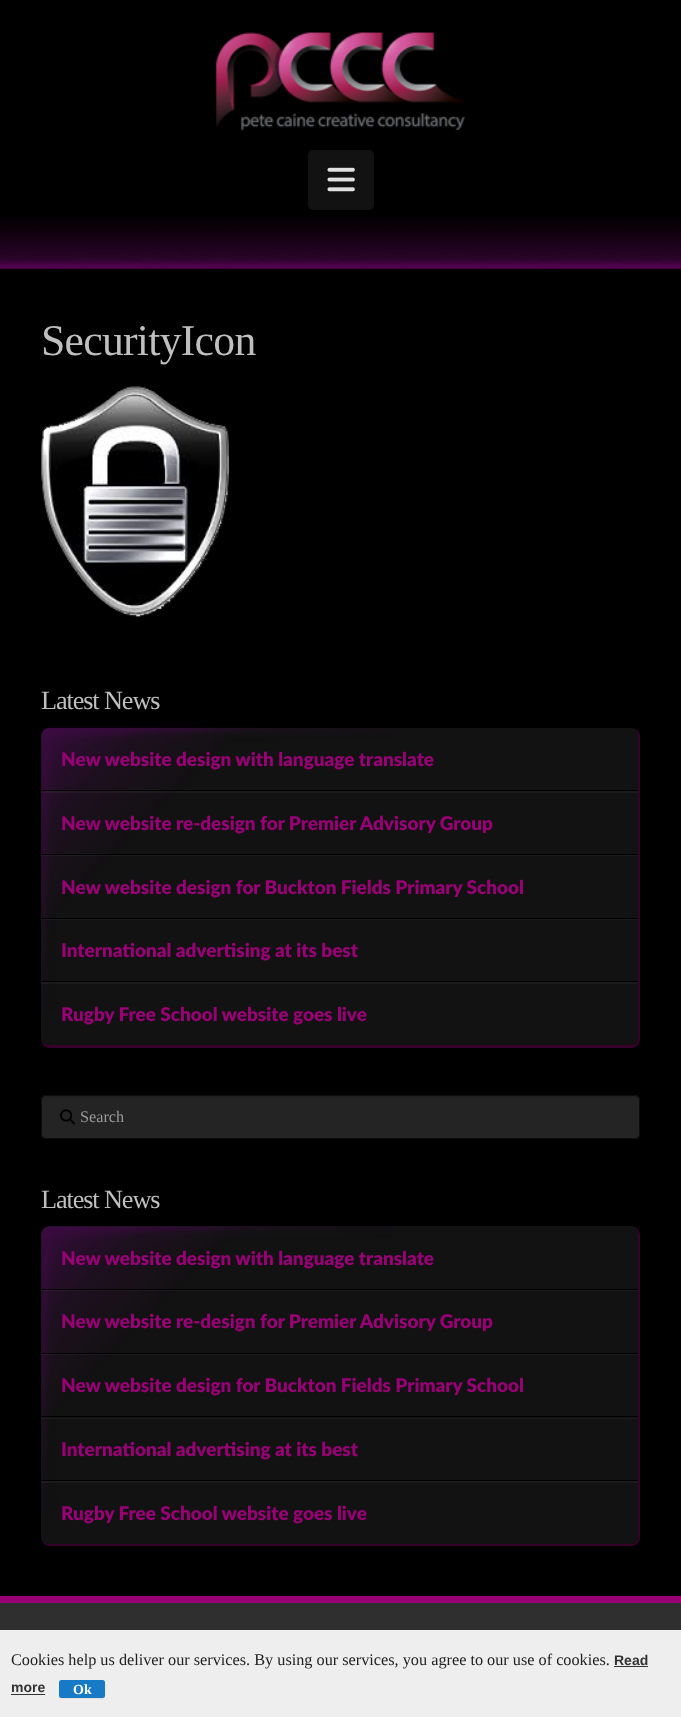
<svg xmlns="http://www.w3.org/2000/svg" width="681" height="1717">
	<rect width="100%" height="100%" fill="#000000" />
	<image x="216" y="32" width="250" height="99" href="assets/img1.png" />
	<image x="0" y="218" width="681" height="51" href="assets/img2.png" />
	<rect x="308" y="150" width="66" height="60" rx="5" fill="#121212" />
	<image x="327" y="167" width="28" height="25" href="assets/img3.png" />
	<text x="41" y="355" font-family="Liberation Serif" font-size="43.75" letter-spacing="-0.75" fill="#BFBFBF">SecurityIcon</text>
	<image x="41" y="386" width="189" height="231" href="assets/img4.png" />
	<text x="41" y="709" font-family="Liberation Serif" font-size="26.25" letter-spacing="-1.1" fill="#BFBFBF">Latest News</text>
	<path d="M50 728H631C635 728 638 731 638 736V1039C638 1042 635 1045 631 1045H50C45 1045 41 1042 41 1039V736C41 731 45 728 50 728Z" fill="#121212" />
	<image x="41" y="727" width="353" height="285" href="assets/img5.png" />
	<path d="M50 728H631C636 728 640 731 640 736V1039C640 1044 636 1048 631 1048H50C45 1048 41 1044 41 1039V736C41 731 45 728 50 728ZM50 728H631C635 728 638 731 638 736V1039C638 1042 635 1045 631 1045H50C45 1045 41 1042 41 1039V736C41 731 45 728 50 728Z" fill="#38012C" fill-rule="evenodd" />
	<rect x="41" y="791" width="597" height="2" fill="#FFFFFF" fill-opacity="0.04" />
	<rect x="41" y="790" width="597" height="1" fill="#000000" fill-opacity="0.95" />
	<text x="61" y="766" font-family="Lato" font-size="18.9" font-weight="800" fill="#980076">New website design with language translate</text>
	<rect x="41" y="855" width="597" height="1" fill="#FFFFFF" fill-opacity="0.04" />
	<rect x="41" y="854" width="597" height="1" fill="#000000" fill-opacity="0.95" />
	<text x="61" y="830" font-family="Lato" font-size="18.9" font-weight="800" fill="#980076">New website re-design for Premier Advisory Group</text>
	<rect x="41" y="919" width="597" height="1" fill="#FFFFFF" fill-opacity="0.04" />
	<rect x="41" y="918" width="597" height="1" fill="#000000" fill-opacity="0.95" />
	<text x="61" y="894" font-family="Lato" font-size="18.9" font-weight="800" fill="#980076">New website design for Buckton Fields Primary School</text>
	<rect x="41" y="982" width="597" height="2" fill="#FFFFFF" fill-opacity="0.04" />
	<rect x="41" y="981" width="597" height="1" fill="#000000" fill-opacity="0.95" />
	<g font-family="Lato" font-size="18.9" font-weight="800" fill="#980076">
		<text x="61" y="957">International advertising at its best</text>
		<text x="61" y="1021">Rugby Free School website goes live</text>
	</g>
	<rect x="41" y="1095" width="599" height="44" rx="5" fill="#242424" />
	<path d="M46 1098H635C637 1098 639 1099 639 1101V1100C639 1098 637 1096 635 1096H47C45 1096 44 1097 43 1099Z" fill="#212121" />
	<rect x="41.5" y="1095.5" width="598" height="43" rx="4.5" fill="none" stroke="#0D0D0D" />
	<image x="60" y="1109" width="15" height="16" href="assets/img6.png" />
	<text x="80" y="1122" font-family="Liberation Serif" font-size="16.25" fill="#999999">Search</text>
	<text x="41" y="1208" font-family="Liberation Serif" font-size="26.25" letter-spacing="-1.1" fill="#BFBFBF">Latest News</text>
	<path d="M50 1226H631C635 1226 638 1230 638 1235V1538C638 1541 635 1544 631 1544H50C45 1544 41 1541 41 1538V1235C41 1230 45 1226 50 1226Z" fill="#121212" />
	<image x="41" y="1226" width="352" height="285" href="assets/img7.png" />
	<path d="M50 1226H631C636 1226 640 1230 640 1235V1538C640 1542 636 1546 631 1546H50C45 1546 41 1542 41 1538V1235C41 1230 45 1226 50 1226ZM50 1226H631C635 1226 638 1230 638 1235V1538C638 1541 635 1544 631 1544H50C45 1544 41 1541 41 1538V1235C41 1230 45 1226 50 1226Z" fill="#38012C" fill-rule="evenodd" />
	<rect x="41" y="1290" width="597" height="1" fill="#FFFFFF" fill-opacity="0.04" />
	<rect x="41" y="1289" width="597" height="1" fill="#000000" fill-opacity="0.95" />
	<text x="61" y="1265" font-family="Lato" font-size="18.9" font-weight="800" fill="#980076">New website design with language translate</text>
	<rect x="41" y="1354" width="597" height="1" fill="#FFFFFF" fill-opacity="0.04" />
	<rect x="41" y="1353" width="597" height="1" fill="#000000" fill-opacity="0.95" />
	<text x="61" y="1328" font-family="Lato" font-size="18.9" font-weight="800" fill="#980076">New website re-design for Premier Advisory Group</text>
	<rect x="41" y="1418" width="597" height="1" fill="#FFFFFF" fill-opacity="0.04" />
	<rect x="41" y="1416" width="597" height="1" fill="#000000" fill-opacity="0.95" />
	<text x="61" y="1392" font-family="Lato" font-size="18.9" font-weight="800" fill="#980076">New website design for Buckton Fields Primary School</text>
	<rect x="41" y="1481" width="597" height="2" fill="#FFFFFF" fill-opacity="0.04" />
	<rect x="41" y="1480" width="597" height="1" fill="#000000" fill-opacity="0.95" />
	<g font-family="Lato" font-size="18.9" font-weight="800" fill="#980076">
		<text x="61" y="1456">International advertising at its best</text>
		<text x="61" y="1520">Rugby Free School website goes live</text>
	</g>
	<rect x="0" y="1603" width="681" height="27" fill="#302F2F" />
	<rect x="0" y="1596" width="681" height="7" fill="#980076" />
	<rect x="0" y="1630" width="681" height="87" fill="#EEEEEE" />
	<text x="11" y="1665" font-family="Liberation Serif" font-size="16.25" fill="#222222">Cookies help us deliver our services. By using our services, you agree to our use of cookies.</text>
	<text x="614" y="1665" font-family="Liberation Sans" font-size="14" font-weight="700" fill="#333333">Read</text>
	<rect x="614" y="1666" width="34" height="1" fill="#333333" />
	<text x="11" y="1692" font-family="Liberation Sans" font-size="14" font-weight="700" fill="#333333">more</text>
	<rect x="11" y="1694" width="34" height="1" fill="#333333" />
	<path d="M59 1696C59 1701 66 1699 68 1699H96C101 1699 105 1701 105 1695C105 1696 104 1698 102 1698H61C60 1698 59 1697 59 1696Z" fill="#E2E2E2" />
	<rect x="59" y="1680" width="46" height="18" rx="2.5" fill="#167AC6" />
	<text x="73" y="1694" font-family="Liberation Serif" font-size="14" font-weight="700" fill="#FFFFFF">Ok</text>
</svg>
